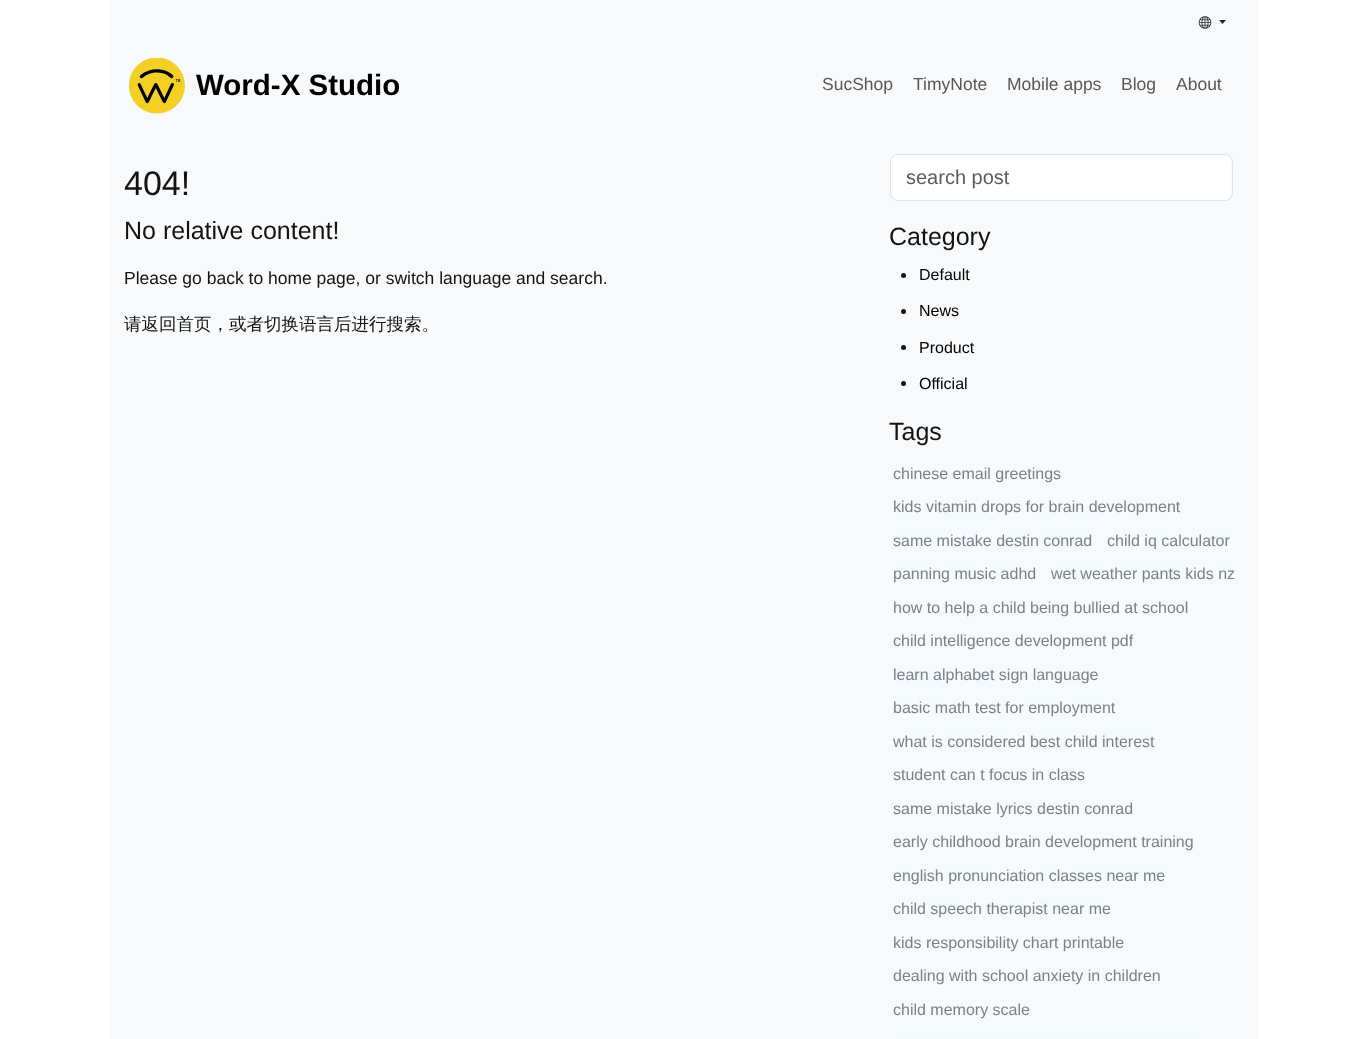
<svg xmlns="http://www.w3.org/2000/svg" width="1366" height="1039">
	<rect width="100%" height="100%" fill="#FFFFFF" />
	<rect x="109" y="0" width="1149" height="1039" fill="#F8F9FA" />
	<image x="1198" y="16" width="14" height="13" href="assets/img1.png" />
	<path d="M1219 20H1226L1222.5 24Z" fill="#212529" />
	<image x="129" y="58" width="56" height="56" href="assets/img2.png" />
	<text x="196" y="95" font-family="Liberation Sans" font-size="29.5" font-weight="700" fill="#000000">Word-X Studio</text>
	<g font-family="Liberation Sans" font-size="17.5" fill="#575758">
		<text x="822" y="90">SucShop</text>
		<text x="913" y="90">TimyNote</text>
		<text x="1007" y="90">Mobile apps</text>
		<text x="1121" y="90">Blog</text>
		<text x="1176" y="90">About</text>
	</g>
	<text x="124" y="195" font-family="Liberation Sans" font-size="34" fill="#131313">404!</text>
	<text x="124" y="239" font-family="Liberation Sans" font-size="25" fill="#131313">No relative content!</text>
	<text x="124" y="284" font-family="Liberation Sans" font-size="17.5" fill="#131313">Please go back to home page, or switch language and search.</text>
	<text x="124" y="330" font-family="WenQuanYi Zen Hei" font-size="17.5" font-weight="500" fill="#131313">请返回首页，或者切换语言后进行搜索。</text>
	<rect x="891" y="155" width="340" height="45" rx="6" fill="#FFFFFF" />
	<rect x="890.5" y="154.5" width="342" height="46" rx="7.5" fill="none" stroke="#DEE2E6" />
	<text x="906" y="184" font-family="Liberation Sans" font-size="20" fill="#595C5F">search post</text>
	<text x="889" y="245" font-family="Liberation Sans" font-size="25" fill="#131313">Category</text>
	<circle cx="903.5" cy="275.5" r="2.5" fill="#131313" />
	<text x="919" y="280" font-family="Liberation Sans" font-size="16" fill="#000000">Default</text>
	<circle cx="903.5" cy="311.5" r="2.5" fill="#131313" />
	<text x="919" y="316" font-family="Liberation Sans" font-size="16" fill="#000000">News</text>
	<circle cx="903.5" cy="347.5" r="2.5" fill="#131313" />
	<text x="919" y="353" font-family="Liberation Sans" font-size="16" fill="#000000">Product</text>
	<circle cx="903.5" cy="383.5" r="2.5" fill="#131313" />
	<text x="919" y="389" font-family="Liberation Sans" font-size="16" fill="#000000">Official</text>
	<text x="889" y="440" font-family="Liberation Sans" font-size="25" fill="#131313">Tags</text>
	<rect x="890" y="460" width="174" height="26" fill="#F5FAFF" />
	<text x="893" y="479" font-family="Liberation Sans" font-size="16" fill="#808080">chinese email greetings</text>
	<rect x="890" y="493" width="293" height="27" fill="#F5FAFF" />
	<text x="893" y="512" font-family="Liberation Sans" font-size="16" fill="#808080">kids vitamin drops for brain development</text>
	<rect x="890" y="526" width="205" height="28" fill="#F5FAFF" />
	<text x="893" y="546" font-family="Liberation Sans" font-size="16" fill="#808080">same mistake destin conrad</text>
	<rect x="1104" y="526" width="129" height="28" fill="#F5FAFF" />
	<text x="1107" y="546" font-family="Liberation Sans" font-size="16" fill="#808080">child iq calculator</text>
	<rect x="890" y="560" width="149" height="28" fill="#F5FAFF" />
	<text x="893" y="579" font-family="Liberation Sans" font-size="16" fill="#808080">panning music adhd</text>
	<rect x="1048" y="560" width="191" height="28" fill="#F5FAFF" />
	<text x="1051" y="579" font-family="Liberation Sans" font-size="16" fill="#808080">wet weather pants kids nz</text>
	<rect x="890" y="594" width="301" height="27" fill="#F5FAFF" />
	<text x="893" y="613" font-family="Liberation Sans" font-size="16" fill="#808080">how to help a child being bullied at school</text>
	<rect x="890" y="628" width="246" height="26" fill="#F5FAFF" />
	<text x="893" y="646" font-family="Liberation Sans" font-size="16" fill="#808080">child intelligence development pdf</text>
	<rect x="890" y="660" width="211" height="28" fill="#F5FAFF" />
	<text x="893" y="680" font-family="Liberation Sans" font-size="16" fill="#808080">learn alphabet sign language</text>
	<rect x="890" y="694" width="228" height="27" fill="#F5FAFF" />
	<text x="893" y="713" font-family="Liberation Sans" font-size="16" fill="#808080">basic math test for employment</text>
	<rect x="890" y="728" width="268" height="27" fill="#F5FAFF" />
	<text x="893" y="747" font-family="Liberation Sans" font-size="16" fill="#808080">what is considered best child interest</text>
	<rect x="890" y="761" width="198" height="28" fill="#F5FAFF" />
	<text x="893" y="780" font-family="Liberation Sans" font-size="16" fill="#808080">student can t focus in class</text>
	<rect x="890" y="795" width="246" height="26" fill="#F5FAFF" />
	<text x="893" y="814" font-family="Liberation Sans" font-size="16" fill="#808080">same mistake lyrics destin conrad</text>
	<rect x="890" y="828" width="306" height="27" fill="#F5FAFF" />
	<text x="893" y="847" font-family="Liberation Sans" font-size="16" fill="#808080">early childhood brain development training</text>
	<rect x="890" y="861" width="278" height="28" fill="#F5FAFF" />
	<text x="893" y="881" font-family="Liberation Sans" font-size="16" fill="#808080">english pronunciation classes near me</text>
	<rect x="890" y="895" width="224" height="28" fill="#F5FAFF" />
	<text x="893" y="914" font-family="Liberation Sans" font-size="16" fill="#808080">child speech therapist near me</text>
	<rect x="890" y="929" width="238" height="27" fill="#F5FAFF" />
	<text x="893" y="948" font-family="Liberation Sans" font-size="16" fill="#808080">kids responsibility chart printable</text>
	<rect x="890" y="963" width="274" height="26" fill="#F5FAFF" />
	<text x="893" y="981" font-family="Liberation Sans" font-size="16" fill="#808080">dealing with school anxiety in children</text>
	<rect x="890" y="996" width="143" height="27" fill="#F5FAFF" />
	<text x="893" y="1015" font-family="Liberation Sans" font-size="16" fill="#808080">child memory scale</text>
	<rect x="890" y="1029" width="320" height="10" fill="#F5FAFF" />
</svg>
